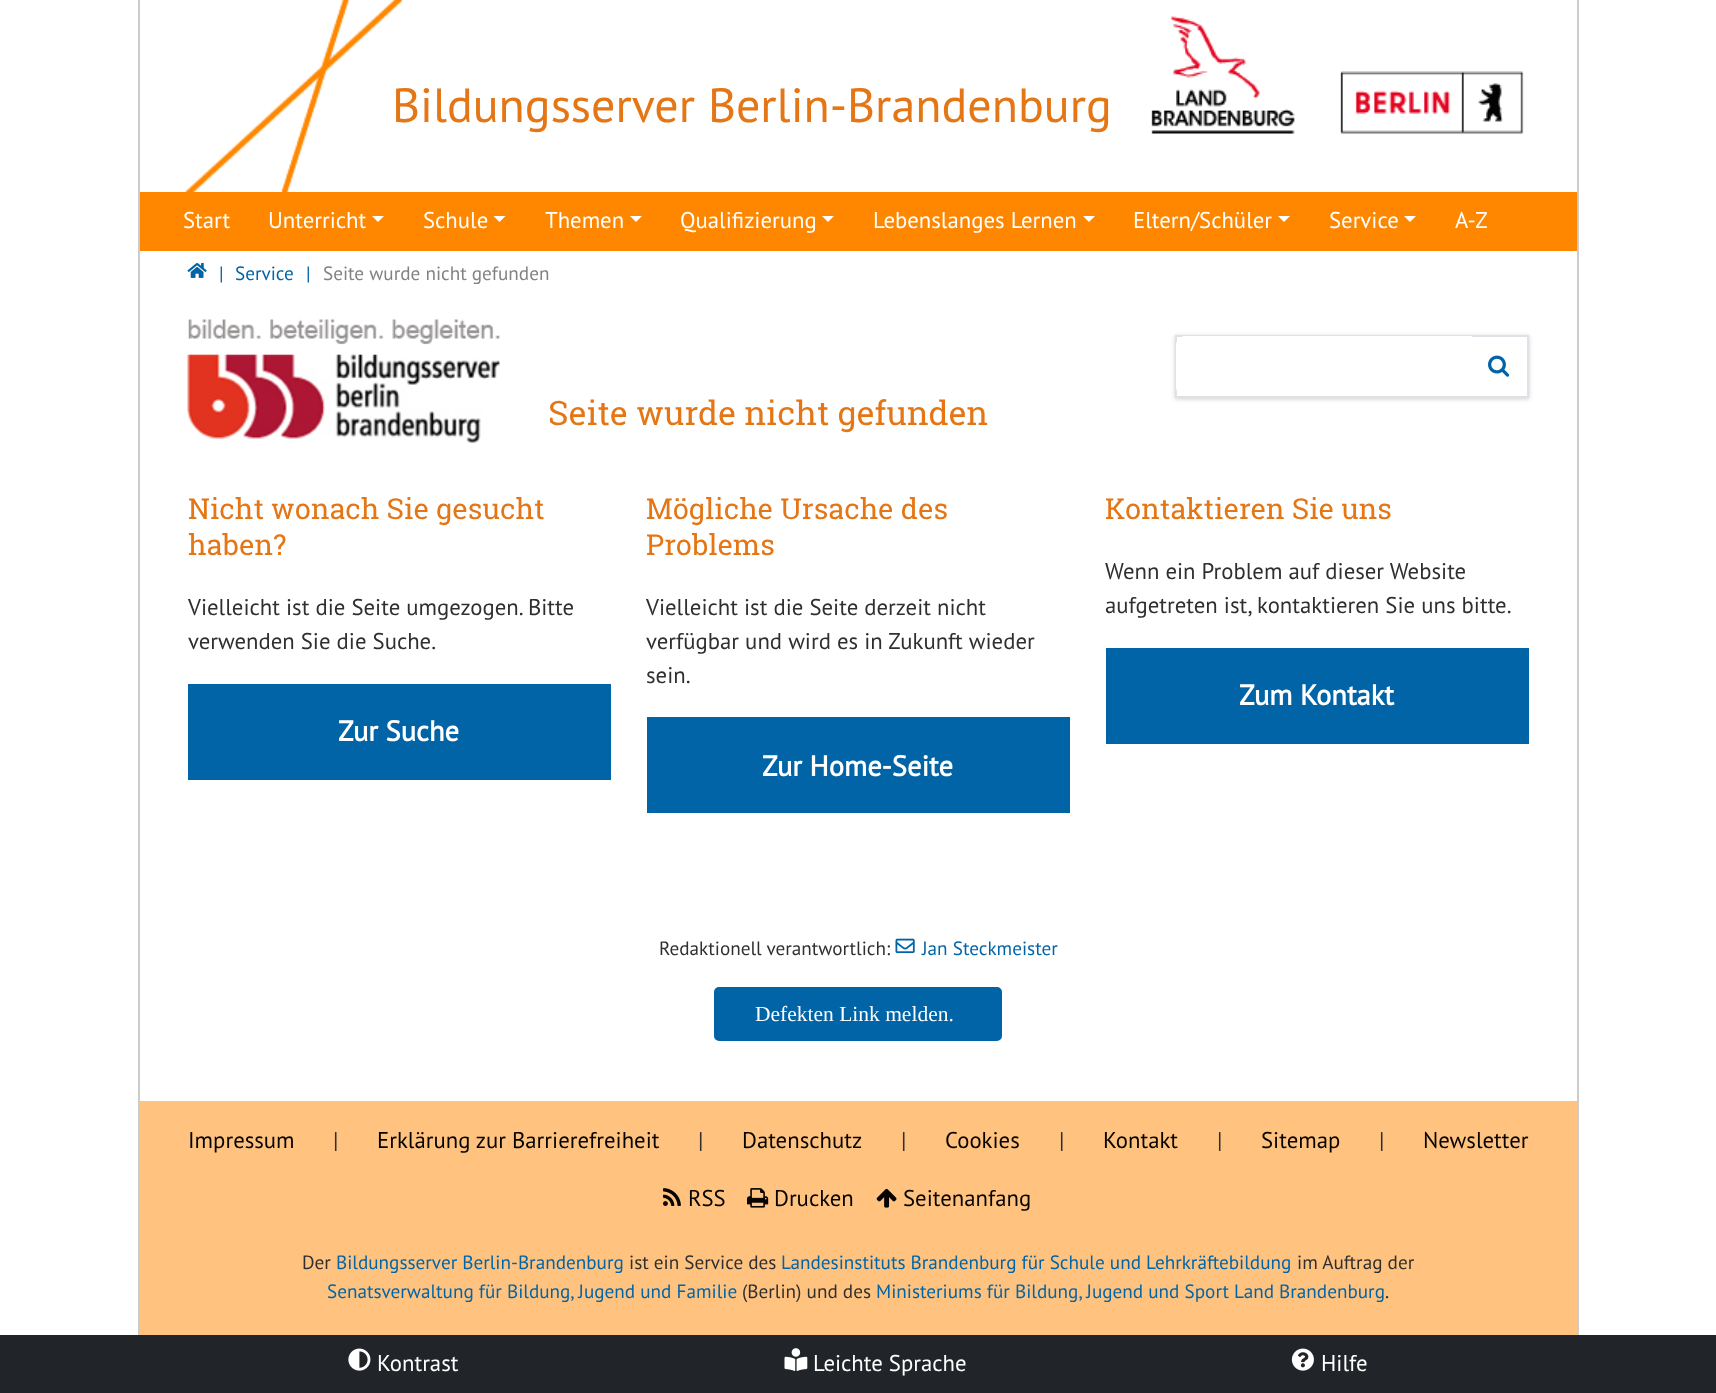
<svg xmlns="http://www.w3.org/2000/svg" width="1716" height="1393">
	<defs>
		<clipPath id="clip1"><path d="M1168 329H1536V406H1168ZM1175 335H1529V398H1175Z" clip-rule="evenodd" /></clipPath>
	</defs>
	<rect width="100%" height="100%" fill="#FFFFFF" />
	<image x="184" y="0" width="218" height="192" href="assets/img1.png" />
	<rect x="1577" y="0" width="2" height="251" fill="#CCCCCC" />
	<rect x="138" y="0" width="2" height="251" fill="#CCCCCC" />
	<text x="392" y="122" font-family="PT Sans" font-size="48" fill="#E47615">Bildungsserver Berlin-Brandenburg</text>
	<image x="1151" y="16" width="373" height="118" href="assets/img2.png" />
	<rect x="140" y="192" width="1437" height="59" fill="#FF8700" />
	<g font-family="PT Sans" font-size="22.75" fill="#FFFFFF">
		<text x="183" y="228">Start</text>
		<text x="268" y="228">Unterricht</text>
	</g>
	<path d="M372 216H384L378 222Z" fill="#FFFFFF" />
	<text x="423" y="228" font-family="PT Sans" font-size="22.75" fill="#FFFFFF">Schule</text>
	<path d="M493.5 216H505.5L499.5 222Z" fill="#FFFFFF" />
	<text x="545" y="228" font-family="PT Sans" font-size="22.75" fill="#FFFFFF">Themen</text>
	<path d="M630 216H642L636 222Z" fill="#FFFFFF" />
	<text x="680" y="228" font-family="PT Sans" font-size="22.75" fill="#FFFFFF">Qualifizierung</text>
	<path d="M822 216H834L828 222Z" fill="#FFFFFF" />
	<text x="873" y="228" font-family="PT Sans" font-size="22.75" fill="#FFFFFF">Lebenslanges Lernen</text>
	<path d="M1083 216H1095L1089 222Z" fill="#FFFFFF" />
	<text x="1133" y="228" font-family="PT Sans" font-size="22.75" fill="#FFFFFF">Eltern/Schüler</text>
	<path d="M1278 216H1290L1284 222Z" fill="#FFFFFF" />
	<text x="1329" y="228" font-family="PT Sans" font-size="22.75" fill="#FFFFFF">Service</text>
	<path d="M1404 216H1416L1410 222Z" fill="#FFFFFF" />
	<text x="1455" y="228" font-family="PT Sans" font-size="22.75" fill="#FFFFFF">A-Z</text>
	<rect x="1577" y="251" width="2" height="1086" fill="#CCCCCC" />
	<rect x="138" y="251" width="2" height="1086" fill="#CCCCCC" />
	<image x="187" y="263" width="20" height="15" href="assets/img3.png" />
	<g font-family="PT Sans" font-size="19.2" fill="#0064A7">
		<text x="219" y="280">|</text>
		<text x="235" y="280">Service</text>
		<text x="306" y="280">|</text>
	</g>
	<text x="323" y="280" font-family="PT Sans" font-size="19.2" fill="#808283">Seite wurde nicht gefunden</text>
	<image x="187" y="319" width="313" height="124" href="assets/img4.png" />
	<g clip-path="url(#clip1)">
		<rect x="1175" y="336" width="354" height="63" fill="#0C0C0D" fill-opacity="0.2" filter="blur(2px)" />
	</g>
	<rect x="1176" y="336" width="352" height="61" fill="none" stroke="#DEE2E6" stroke-width="2" />
	<path d="M1185 336H1472V396H1185C1180 396 1176 392 1176 387V345C1176 340 1180 336 1185 336Z" fill="#FFFFFF" />
	<image x="1488" y="355" width="22" height="22" href="assets/img5.png" />
	<text x="548" y="425" font-family="Roboto Slab" font-size="33.6" fill="#E47615">Seite wurde nicht gefunden</text>
	<g font-family="Roboto Slab" font-size="28.75" fill="#E47615">
		<text x="188" y="519">Nicht wonach Sie gesucht</text>
		<text x="188" y="555">haben?</text>
	</g>
	<g font-family="PT Sans" font-size="22.75" fill="#2F2F2F">
		<text x="188" y="615">Vielleicht ist die Seite umgezogen. Bitte</text>
		<text x="188" y="649">verwenden Sie die Suche.</text>
	</g>
	<rect x="188" y="684" width="423" height="96" fill="#0064A7" />
	<text x="338" y="741" font-family="PT Sans" font-size="28.5" font-weight="700" fill="#FFFFFF">Zur Suche</text>
	<g font-family="Roboto Slab" font-size="28.75" fill="#E47615">
		<text x="646" y="519">Mögliche Ursache des</text>
		<text x="646" y="555">Problems</text>
	</g>
	<g font-family="PT Sans" font-size="22.75" fill="#2F2F2F">
		<text x="646" y="615">Vielleicht ist die Seite derzeit nicht</text>
		<text x="646" y="649">verfügbar und wird es in Zukunft wieder</text>
		<text x="646" y="683">sein.</text>
	</g>
	<rect x="647" y="717" width="423" height="96" fill="#0064A7" />
	<text x="762" y="776" font-family="PT Sans" font-size="28.5" font-weight="700" fill="#FFFFFF">Zur Home-Seite</text>
	<text x="1105" y="519" font-family="Roboto Slab" font-size="28.75" fill="#E47615">Kontaktieren Sie uns</text>
	<g font-family="PT Sans" font-size="22.75" fill="#2F2F2F">
		<text x="1105" y="579">Wenn ein Problem auf dieser Website</text>
		<text x="1105" y="613">aufgetreten ist, kontaktieren Sie uns bitte.</text>
	</g>
	<rect x="1106" y="648" width="423" height="96" fill="#0064A7" />
	<text x="1239" y="705" font-family="PT Sans" font-size="28.5" font-weight="700" fill="#FFFFFF">Zum Kontakt</text>
	<text x="659" y="955" font-family="PT Sans" font-size="19.2" fill="#2F2F2F">Redaktionell verantwortlich:</text>
	<image x="895" y="938" width="20" height="16" href="assets/img6.png" />
	<text x="922" y="955" font-family="PT Sans" font-size="19.2" fill="#0064A7">Jan Steckmeister</text>
	<rect x="715" y="988" width="286" height="52" rx="4" fill="#0064A7" stroke="#0064A7" stroke-width="2" />
	<text x="755" y="1021" font-family="Liberation Serif" font-size="21.5" fill="#FFFFFF">Defekten Link melden.</text>
	<rect x="140" y="1101" width="1437" height="234" fill="#FFC37F" />
	<text x="188" y="1148" font-family="PT Sans" font-size="22.75" fill="#060300">Impressum</text>
	<text x="333" y="1148" font-family="PT Sans" font-size="22.75" fill="#2F2F2F">|</text>
	<text x="377" y="1148" font-family="PT Sans" font-size="22.75" fill="#060300">Erklärung zur Barrierefreiheit</text>
	<text x="698" y="1148" font-family="PT Sans" font-size="22.75" fill="#2F2F2F">|</text>
	<text x="742" y="1148" font-family="PT Sans" font-size="22.75" fill="#060300">Datenschutz</text>
	<text x="901" y="1148" font-family="PT Sans" font-size="22.75" fill="#2F2F2F">|</text>
	<text x="945" y="1148" font-family="PT Sans" font-size="22.75" fill="#060300">Cookies</text>
	<text x="1059" y="1148" font-family="PT Sans" font-size="22.75" fill="#2F2F2F">|</text>
	<text x="1103" y="1148" font-family="PT Sans" font-size="22.75" fill="#060300">Kontakt</text>
	<text x="1217" y="1148" font-family="PT Sans" font-size="22.75" fill="#2F2F2F">|</text>
	<text x="1261" y="1148" font-family="PT Sans" font-size="22.75" fill="#060300">Sitemap</text>
	<text x="1379" y="1148" font-family="PT Sans" font-size="22.75" fill="#2F2F2F">|</text>
	<text x="1423" y="1148" font-family="PT Sans" font-size="22.75" fill="#060300">Newsletter</text>
	<image x="663" y="1188" width="18" height="18" href="assets/img7.png" />
	<text x="688" y="1206" font-family="PT Sans" font-size="22.75" fill="#060300">RSS</text>
	<image x="747" y="1188" width="22" height="20" href="assets/img8.png" />
	<text x="774" y="1206" font-family="PT Sans" font-size="22.75" fill="#060300">Drucken</text>
	<image x="876" y="1188" width="21" height="20" href="assets/img9.png" />
	<text x="903" y="1206" font-family="PT Sans" font-size="22.75" fill="#060300">Seitenanfang</text>
	<text x="302" y="1269" font-family="PT Sans" font-size="19.2" fill="#2F2F2F">Der</text>
	<text x="336" y="1269" font-family="PT Sans" font-size="19.2" fill="#0064A7">Bildungsserver Berlin-Brandenburg</text>
	<text x="629" y="1269" font-family="PT Sans" font-size="19.2" fill="#2F2F2F">ist ein Service des</text>
	<text x="781" y="1269" font-family="PT Sans" font-size="19.2" fill="#0064A7">Landesinstituts Brandenburg für Schule und Lehrkräftebildung</text>
	<text x="1297" y="1269" font-family="PT Sans" font-size="19.2" fill="#2F2F2F">im Auftrag der</text>
	<text x="327" y="1298" font-family="PT Sans" font-size="19.2" fill="#0064A7">Senatsverwaltung für Bildung, Jugend und Familie</text>
	<text x="742" y="1298" font-family="PT Sans" font-size="19.2" fill="#2F2F2F">(Berlin) und des</text>
	<text x="876" y="1298" font-family="PT Sans" font-size="19.2" fill="#0064A7">Ministeriums für Bildung, Jugend und Sport Land Brandenburg</text>
	<text x="1385" y="1298" font-family="PT Sans" font-size="19.2" fill="#2F2F2F">.</text>
	<rect x="0" y="1335" width="1716" height="58" fill="#212529" />
	<image x="348" y="1348" width="23" height="23" href="assets/img10.png" />
	<text x="377" y="1371" font-family="PT Sans" font-size="22.75" fill="#FFFFFF">Kontrast</text>
	<image x="784" y="1348" width="24" height="23" href="assets/img11.png" />
	<text x="813" y="1371" font-family="PT Sans" font-size="22.75" fill="#FFFFFF">Leichte Sprache</text>
	<image x="1291" y="1348" width="23" height="23" href="assets/img12.png" />
	<text x="1321" y="1371" font-family="PT Sans" font-size="22.75" fill="#FFFFFF">Hilfe</text>
</svg>
